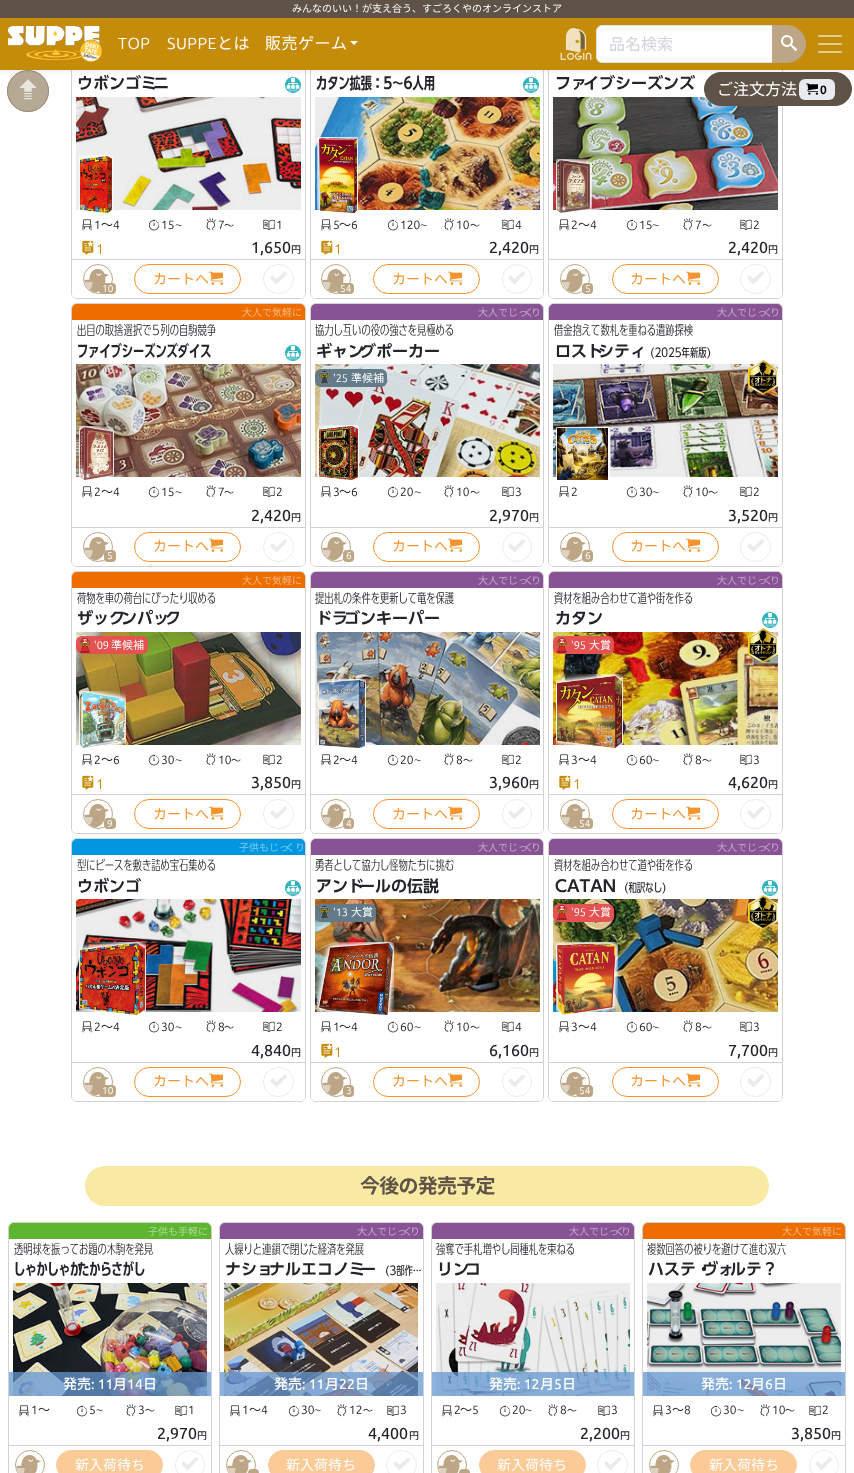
<svg xmlns="http://www.w3.org/2000/svg" width="854" height="1473">
	<style>*{font-kerning:none!important;font-variant-ligatures:none!important}</style>
	<defs>
		<clipPath id="clip1"><rect x="74" y="324" width="231" height="14" /></clipPath>
		<clipPath id="clip2"><rect x="551" y="324" width="231" height="14" /></clipPath>
		<clipPath id="clip3"><rect x="74" y="592" width="231" height="13" /></clipPath>
		<clipPath id="clip4"><rect x="313" y="592" width="230" height="13" /></clipPath>
		<clipPath id="clip5"><rect x="551" y="592" width="231" height="13" /></clipPath>
		<clipPath id="clip6"><rect x="74" y="859" width="231" height="14" /></clipPath>
		<clipPath id="clip7"><rect x="313" y="859" width="230" height="14" /></clipPath>
		<clipPath id="clip8"><rect x="551" y="859" width="231" height="14" /></clipPath>
		<clipPath id="clip9"><rect x="11" y="1243" width="200" height="13" /></clipPath>
		<clipPath id="clip10"><rect x="434" y="1243" width="200" height="13" /></clipPath>
		<clipPath id="clip11"><rect x="645" y="1243" width="200" height="13" /></clipPath>
	</defs>
	<rect width="100%" height="100%" fill="#FFFFFF" />
	<rect x="71.5" y="36.5" width="234" height="262" rx="5.5" fill="none" stroke="#D2D2D2" />
	<image x="285" y="77" width="16" height="16" href="assets/img6.png" />
	<rect x="310.5" y="36.5" width="233" height="262" rx="5.5" fill="none" stroke="#D2D2D2" />
	<image x="523" y="77" width="16" height="16" href="assets/img6.png" />
	<rect x="548.5" y="36.5" width="234" height="262" rx="5.5" fill="none" stroke="#D2D2D2" />
	<image x="553" y="97" width="225" height="113" href="assets/img18.png" />
	<rect x="704.5" y="72.5" width="147" height="33" rx="16.5" fill="#5E5346" stroke="#5E5346" />
	<rect x="0" y="2" width="854" height="70" fill="#000000" fill-opacity="0.07" filter="blur(2px)" />
	<rect x="0" y="0" width="854" height="18" fill="#5E5346" />
	<text x="292" y="12" font-family="Noto Sans JP" font-size="10" fill="#FFFFFF">みんなのいい！が支え合う、すごろくやのオンラインストア</text>
	<rect x="0" y="18" width="854" height="52" fill="#C48C08" />
	<image x="8" y="26" width="94" height="36" href="assets/img1.png" />
	<g font-family="Ubuntu" font-size="16" letter-spacing="0.5" fill="#FFFFFF">
		<text x="118" y="49">TOP</text>
		<text x="167" y="49">SUPPE</text>
	</g>
	<g font-family="Noto Sans JP" font-size="16" letter-spacing="0.5" fill="#FFFFFF">
		<text x="217" y="49">とは</text>
		<text x="265" y="49">販売ゲーム</text>
	</g>
	<path d="M350 41H358L354 45Z" fill="#FFFFFF" />
	<image x="560" y="28" width="32" height="32" href="assets/img2.png" />
	<path d="M602 25.5H772.5V62.5H602C599 62.5 596.5 60 596.5 57V31C596.5 28 599 25.5 602 25.5Z" fill="#FFFFFF" stroke="#DEE2E6" />
	<text x="609" y="50" font-family="Noto Sans JP" font-size="16" fill="#CED4DA">品名検索</text>
	<path d="M772.5 25.5H787C797 25.5 805.5 34 805.5 44C805.5 54 797 62.5 787 62.5H772.5Z" fill="#BCA685" stroke="#BCA685" />
	<image x="781" y="35" width="16" height="16" href="assets/img3.png" />
	<image x="818" y="35" width="24" height="18" href="assets/img4.png" />
	<circle cx="28" cy="91" r="21" fill="#96856A" fill-opacity="0.7" />
	<circle cx="28" cy="91" r="20.5" fill="none" stroke="#8D7D64" stroke-opacity="0.7" />
	<image x="19" y="79" width="18" height="21" href="assets/img5.png" />
	<text x="77" y="89" font-family="'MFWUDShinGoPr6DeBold'" font-size="16" font-weight="600" fill="#212529">ウボンゴミ</text>
	<text x="153" y="89" font-family="'MFWUDShinGoPr6DeBold'" font-size="16" font-weight="600" fill="#212529">ニ</text>
	<image x="76" y="97" width="225" height="113" href="assets/img7.png" />
	<image x="79" y="155" width="34" height="58" href="assets/img8.png" />
	<image x="82" y="219" width="10" height="12" href="assets/img9.png" />
	<text x="94" y="229" font-family="Ubuntu" font-size="12" fill="#212529">1</text>
	<text x="101" y="229" font-family="Noto Sans JP" font-size="12" fill="#212529">〜</text>
	<text x="113" y="229" font-family="Ubuntu" font-size="12" fill="#212529">4</text>
	<image x="148" y="219" width="12" height="12" href="assets/img10.png" />
	<text x="161" y="229" font-family="Ubuntu" font-size="12" fill="#212529">15</text>
	<text x="175" y="229" font-family="'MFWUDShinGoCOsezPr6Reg'" font-size="10" fill="#212529">〜</text>
	<image x="206" y="218" width="10" height="13" href="assets/img11.png" />
	<text x="218" y="229" font-family="Ubuntu" font-size="12" fill="#212529">7</text>
	<text x="224" y="229" font-family="Noto Sans JP" font-size="10" fill="#212529">〜</text>
	<image x="263" y="219" width="12" height="11" href="assets/img12.png" />
	<text x="276" y="229" font-family="Ubuntu" font-size="12" fill="#212529">1</text>
	<image x="82" y="240" width="12" height="15" href="assets/img13.png" />
	<text x="96" y="254" font-family="Ubuntu" font-size="14" fill="#C48C08">1</text>
	<text x="251" y="253" font-family="Ubuntu" font-size="16" font-weight="500" fill="#212529">1,650</text>
	<text x="291" y="253" font-family="Noto Sans JP" font-size="10" font-weight="500" fill="#212529">円</text>
	<path d="M72 259H305V293C305 296 303 298 300 298H77C74 298 72 296 72 293Z" fill="#FFFFFF" />
	<rect x="72" y="259" width="233" height="1" fill="#D2D2D2" />
	<rect x="134.5" y="264.5" width="106" height="29" rx="14.5" fill="none" stroke="#F4942E" />
	<text x="153" y="284" font-family="Noto Sans JP" font-size="14" fill="#F4942E">カートへ</text>
	<image x="209" y="271" width="14" height="14" href="assets/img14.png" />
	<rect x="263.5" y="264.5" width="30" height="29" rx="14.5" fill="none" stroke="#E9ECEF" />
	<path d="M285 271L276.5 279L272.5 275L270 278L276.5 284.5L287.5 273.5Z" fill="#E9ECEF" />
	<circle cx="98" cy="279" r="14.5" fill="none" stroke="#BCA685" />
	<image x="84" y="269" width="25" height="24" href="assets/img15.png" />
	<rect x="99" y="283" width="17" height="11" rx="4" fill="#BCA685" />
	<text x="102" y="292" font-family="Ubuntu" font-size="10" fill="#FFFFFF">10</text>
	<text x="316" y="89" font-family="'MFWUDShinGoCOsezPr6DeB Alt'" font-size="16" font-weight="600" fill="#212529">カタン拡張：5〜6人用</text>
	<image x="315" y="97" width="225" height="113" href="assets/img16.png" />
	<image x="317" y="137" width="41" height="76" href="assets/img17.png" />
	<image x="321" y="219" width="10" height="12" href="assets/img9.png" />
	<text x="333" y="229" font-family="Ubuntu" font-size="12" fill="#212529">5</text>
	<text x="339" y="229" font-family="Noto Sans JP" font-size="12" fill="#212529">〜</text>
	<text x="351" y="229" font-family="Ubuntu" font-size="12" fill="#212529">6</text>
	<image x="387" y="219" width="12" height="12" href="assets/img10.png" />
	<text x="400" y="229" font-family="Ubuntu" font-size="12" fill="#212529">120</text>
	<text x="420" y="229" font-family="'MFWUDShinGoCOsezPr6Reg'" font-size="10" fill="#212529">〜</text>
	<image x="444" y="218" width="10" height="13" href="assets/img11.png" />
	<text x="456" y="229" font-family="Ubuntu" font-size="12" fill="#212529">10</text>
	<text x="470" y="229" font-family="Noto Sans JP" font-size="10" fill="#212529">〜</text>
	<image x="502" y="219" width="12" height="11" href="assets/img12.png" />
	<text x="515" y="229" font-family="Ubuntu" font-size="12" fill="#212529">4</text>
	<image x="321" y="240" width="12" height="15" href="assets/img13.png" />
	<text x="334" y="254" font-family="Ubuntu" font-size="14" fill="#C48C08">1</text>
	<text x="489" y="253" font-family="Ubuntu" font-size="16" font-weight="500" fill="#212529">2,420</text>
	<text x="529" y="253" font-family="Noto Sans JP" font-size="10" font-weight="500" fill="#212529">円</text>
	<path d="M311 259H543V293C543 296 541 298 538 298H316C313 298 311 296 311 293Z" fill="#FFFFFF" />
	<rect x="311" y="259" width="232" height="1" fill="#D2D2D2" />
	<rect x="373.5" y="264.5" width="106" height="29" rx="14.5" fill="none" stroke="#F4942E" />
	<text x="392" y="284" font-family="Noto Sans JP" font-size="14" fill="#F4942E">カートへ</text>
	<image x="448" y="271" width="14" height="14" href="assets/img14.png" />
	<circle cx="517" cy="279" r="14.5" fill="none" stroke="#E9ECEF" />
	<path d="M523 271L514.5 279L510.5 275L508 278L514.5 284.5L525.5 273.5Z" fill="#E9ECEF" />
	<circle cx="336" cy="279" r="14.5" fill="none" stroke="#BCA685" />
	<image x="322" y="269" width="25" height="24" href="assets/img15.png" />
	<rect x="337" y="283" width="17" height="11" rx="4" fill="#BCA685" />
	<text x="340" y="292" font-family="Ubuntu" font-size="10" fill="#FFFFFF">54</text>
	<text x="555" y="89" font-family="'MFWUDShinGoPr6DeBold'" font-size="16" font-weight="600" fill="#212529">ファ</text>
	<text x="583" y="89" font-family="'MFWUDShinGoPr6DeBold'" font-size="16" font-weight="600" fill="#212529">イブシーズンズ</text>
	<image x="556" y="159" width="36" height="54" href="assets/img19.png" />
	<image x="559" y="219" width="10" height="12" href="assets/img9.png" />
	<text x="571" y="229" font-family="Ubuntu" font-size="12" fill="#212529">2</text>
	<text x="578" y="229" font-family="Noto Sans JP" font-size="12" fill="#212529">〜</text>
	<text x="590" y="229" font-family="Ubuntu" font-size="12" fill="#212529">4</text>
	<image x="626" y="219" width="12" height="12" href="assets/img10.png" />
	<text x="639" y="229" font-family="Ubuntu" font-size="12" fill="#212529">15</text>
	<text x="652" y="229" font-family="'MFWUDShinGoCOsezPr6Reg'" font-size="10" fill="#212529">〜</text>
	<image x="683" y="218" width="10" height="13" href="assets/img11.png" />
	<text x="695" y="229" font-family="Ubuntu" font-size="12" fill="#212529">7</text>
	<text x="702" y="229" font-family="Noto Sans JP" font-size="10" fill="#212529">〜</text>
	<image x="740" y="219" width="12" height="11" href="assets/img12.png" />
	<text x="753" y="229" font-family="Ubuntu" font-size="12" fill="#212529">2</text>
	<text x="728" y="253" font-family="Ubuntu" font-size="16" font-weight="500" fill="#212529">2,420</text>
	<text x="768" y="253" font-family="Noto Sans JP" font-size="10" font-weight="500" fill="#212529">円</text>
	<path d="M549 259H782V293C782 296 780 298 777 298H554C551 298 549 296 549 293Z" fill="#FFFFFF" />
	<rect x="549" y="259" width="233" height="1" fill="#D2D2D2" />
	<rect x="612.5" y="264.5" width="106" height="29" rx="14.5" fill="none" stroke="#F4942E" />
	<text x="630" y="284" font-family="Noto Sans JP" font-size="14" fill="#F4942E">カートへ</text>
	<image x="686" y="271" width="14" height="14" href="assets/img14.png" />
	<rect x="740.5" y="264.5" width="30" height="29" rx="14.5" fill="none" stroke="#E9ECEF" />
	<path d="M762 271L753.5 279L749.5 275L747 278L753.5 284.5L764.5 273.5Z" fill="#E9ECEF" />
	<circle cx="575" cy="279" r="14.5" fill="none" stroke="#BCA685" />
	<image x="561" y="269" width="25" height="24" href="assets/img15.png" />
	<rect x="582" y="283" width="11" height="11" rx="4" fill="#BCA685" />
	<text x="585" y="292" font-family="Ubuntu" font-size="10" fill="#FFFFFF">5</text>
	<rect x="71.5" y="303.5" width="234" height="263" rx="5.5" fill="none" stroke="#D2D2D2" />
	<path d="M77 304H300C303 304 305 306 305 309V320H72V309C72 306 74 304 77 304Z" fill="#ED6D00" />
	<text x="242" y="316" font-family="Noto Sans JP" font-size="10" fill="#F6B680">大人で気軽に</text>
	<g clip-path="url(#clip1)">
		<text x="77" y="335" font-family="'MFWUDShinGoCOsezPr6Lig'" font-size="13.25" font-weight="300" fill="#212529">出目の取捨選択で５列の自駒競争</text>
	</g>
	<text x="77" y="357" font-family="'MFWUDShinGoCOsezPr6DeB'" font-size="16" font-weight="600" fill="#212529">ファイブシーズンズダイス</text>
	<image x="285" y="345" width="16" height="16" href="assets/img6.png" />
	<image x="76" y="364" width="225" height="113" href="assets/img20.png" />
	<image x="79" y="426" width="35" height="54" href="assets/img21.png" />
	<image x="82" y="486" width="10" height="12" href="assets/img9.png" />
	<text x="94" y="496" font-family="Ubuntu" font-size="12" fill="#212529">2</text>
	<text x="101" y="496" font-family="Noto Sans JP" font-size="12" fill="#212529">〜</text>
	<text x="113" y="496" font-family="Ubuntu" font-size="12" fill="#212529">4</text>
	<image x="148" y="486" width="12" height="12" href="assets/img10.png" />
	<text x="161" y="496" font-family="Ubuntu" font-size="12" fill="#212529">15</text>
	<text x="175" y="496" font-family="'MFWUDShinGoCOsezPr6Reg'" font-size="10" fill="#212529">〜</text>
	<image x="206" y="485" width="10" height="13" href="assets/img11.png" />
	<text x="218" y="496" font-family="Ubuntu" font-size="12" fill="#212529">7</text>
	<text x="224" y="496" font-family="Noto Sans JP" font-size="10" fill="#212529">〜</text>
	<image x="263" y="486" width="12" height="11" href="assets/img12.png" />
	<text x="276" y="496" font-family="Ubuntu" font-size="12" fill="#212529">2</text>
	<text x="251" y="521" font-family="Ubuntu" font-size="16" font-weight="500" fill="#212529">2,420</text>
	<text x="291" y="521" font-family="Noto Sans JP" font-size="10" font-weight="500" fill="#212529">円</text>
	<path d="M72 527H305V561C305 564 303 566 300 566H77C74 566 72 564 72 561Z" fill="#FFFFFF" />
	<rect x="72" y="527" width="233" height="1" fill="#D2D2D2" />
	<rect x="134.5" y="532.5" width="106" height="29" rx="14.5" fill="none" stroke="#F4942E" />
	<text x="153" y="551" font-family="Noto Sans JP" font-size="14" fill="#F4942E">カートへ</text>
	<image x="209" y="538" width="14" height="14" href="assets/img14.png" />
	<rect x="263.5" y="532.5" width="30" height="29" rx="14.5" fill="none" stroke="#E9ECEF" />
	<path d="M285 539L276.5 547L272.5 543L270 546L276.5 552.5L287.5 541.5Z" fill="#E9ECEF" />
	<circle cx="98" cy="547" r="14.5" fill="none" stroke="#BCA685" />
	<image x="84" y="537" width="25" height="24" href="assets/img15.png" />
	<rect x="104" y="550" width="12" height="12" rx="4" fill="#BCA685" />
	<text x="107" y="559" font-family="Ubuntu" font-size="10" fill="#FFFFFF">5</text>
	<rect x="310.5" y="303.5" width="233" height="263" rx="5.5" fill="none" stroke="#D2D2D2" />
	<path d="M316 304H538C541 304 543 306 543 309V320H311V309C311 306 313 304 316 304Z" fill="#885394" />
	<text x="478" y="316" font-family="Noto Sans JP" font-size="10" fill="#C4A9CA">大人でじっ</text>
	<text x="524" y="316" font-family="Noto Sans JP" font-size="10" fill="#C4A9CA">く</text>
	<text x="531" y="316" font-family="Noto Sans JP" font-size="10" fill="#C4A9CA">り</text>
	<text x="315" y="335" font-family="'MFWUDShinGoCOsezPr6Lig'" font-size="13.25" font-weight="300" fill="#212529">協力し互いの役の強さを見極める</text>
	<text x="316" y="357" font-family="'MFWUDShinGoPr6DeBold'" font-size="16" font-weight="600" fill="#212529">ギャン</text>
	<text x="360" y="357" font-family="'MFWUDShinGoPr6DeBold'" font-size="16" font-weight="600" fill="#212529">グポーカー</text>
	<image x="315" y="364" width="225" height="113" href="assets/img22.png" />
	<rect x="315" y="369" width="72" height="18" rx="6" fill="#637A88" />
	<image x="319" y="370" width="11" height="15" href="assets/img23.png" />
	<text x="333" y="382" font-family="Ubuntu" font-size="11" fill="#FFFFFF">'25</text>
	<text x="351" y="382" font-family="Noto Sans JP" font-size="11" fill="#FFFFFF">準候補</text>
	<image x="317" y="425" width="42" height="55" href="assets/img24.png" />
	<image x="321" y="486" width="10" height="12" href="assets/img9.png" />
	<text x="333" y="496" font-family="Ubuntu" font-size="12" fill="#212529">3</text>
	<text x="339" y="496" font-family="Noto Sans JP" font-size="12" fill="#212529">〜</text>
	<text x="351" y="496" font-family="Ubuntu" font-size="12" fill="#212529">6</text>
	<image x="387" y="486" width="12" height="12" href="assets/img10.png" />
	<text x="400" y="496" font-family="Ubuntu" font-size="12" fill="#212529">20</text>
	<text x="414" y="496" font-family="'MFWUDShinGoCOsezPr6Reg'" font-size="10" fill="#212529">〜</text>
	<image x="444" y="485" width="10" height="13" href="assets/img11.png" />
	<text x="456" y="496" font-family="Ubuntu" font-size="12" fill="#212529">10</text>
	<text x="470" y="496" font-family="Noto Sans JP" font-size="10" fill="#212529">〜</text>
	<image x="502" y="486" width="12" height="11" href="assets/img12.png" />
	<text x="515" y="496" font-family="Ubuntu" font-size="12" fill="#212529">3</text>
	<text x="489" y="521" font-family="Ubuntu" font-size="16" font-weight="500" fill="#212529">2,970</text>
	<text x="529" y="521" font-family="Noto Sans JP" font-size="10" font-weight="500" fill="#212529">円</text>
	<path d="M311 527H543V561C543 564 541 566 538 566H316C313 566 311 564 311 561Z" fill="#FFFFFF" />
	<rect x="311" y="527" width="232" height="1" fill="#D2D2D2" />
	<rect x="373.5" y="532.5" width="106" height="29" rx="14.5" fill="none" stroke="#F4942E" />
	<text x="392" y="551" font-family="Noto Sans JP" font-size="14" fill="#F4942E">カートへ</text>
	<image x="448" y="538" width="14" height="14" href="assets/img14.png" />
	<circle cx="517" cy="547" r="14.5" fill="none" stroke="#E9ECEF" />
	<path d="M523 539L514.5 547L510.5 543L508 546L514.5 552.5L525.5 541.5Z" fill="#E9ECEF" />
	<circle cx="336" cy="547" r="14.5" fill="none" stroke="#BCA685" />
	<image x="322" y="537" width="25" height="24" href="assets/img15.png" />
	<rect x="343" y="550" width="11" height="12" rx="4" fill="#BCA685" />
	<text x="346" y="559" font-family="Ubuntu" font-size="10" fill="#FFFFFF">6</text>
	<rect x="548.5" y="303.5" width="234" height="263" rx="5.5" fill="none" stroke="#D2D2D2" />
	<path d="M554 304H777C780 304 782 306 782 309V320H549V309C549 306 551 304 554 304Z" fill="#885394" />
	<text x="717" y="316" font-family="Noto Sans JP" font-size="10" fill="#C4A9CA">大人でじっ</text>
	<text x="763" y="316" font-family="Noto Sans JP" font-size="10" fill="#C4A9CA">く</text>
	<text x="770" y="316" font-family="Noto Sans JP" font-size="10" fill="#C4A9CA">り</text>
	<g clip-path="url(#clip2)">
		<text x="554" y="335" font-family="'MFWUDShinGoCOsezPr6Lig'" font-size="13.25" font-weight="300" fill="#212529">借金抱えて数札を重ねる遺跡探検</text>
	</g>
	<text x="555" y="357" font-family="'MFWUDShinGoPr6DeBold'" font-size="16" font-weight="600" fill="#212529">ロスト</text>
	<text x="598" y="357" font-family="'MFWUDShinGoPr6DeBold'" font-size="16" font-weight="600" fill="#212529">シティ</text>
	<text x="650" y="357" font-family="'MFWUDShinGoCOsezPr6Reg'" font-size="12" fill="#212529">(2025年新版)</text>
	<image x="553" y="364" width="225" height="113" href="assets/img26.png" />
	<image x="748" y="360" width="30" height="35" href="assets/img25.png" />
	<image x="556" y="427" width="54" height="53" href="assets/img27.png" />
	<image x="559" y="486" width="10" height="12" href="assets/img9.png" />
	<text x="571" y="496" font-family="Ubuntu" font-size="12" fill="#212529">2</text>
	<image x="626" y="486" width="12" height="12" href="assets/img10.png" />
	<text x="639" y="496" font-family="Ubuntu" font-size="12" fill="#212529">30</text>
	<text x="652" y="496" font-family="'MFWUDShinGoCOsezPr6Reg'" font-size="10" fill="#212529">〜</text>
	<image x="683" y="485" width="10" height="13" href="assets/img11.png" />
	<text x="695" y="496" font-family="Ubuntu" font-size="12" fill="#212529">10</text>
	<text x="708" y="496" font-family="Noto Sans JP" font-size="10" fill="#212529">〜</text>
	<image x="740" y="486" width="12" height="11" href="assets/img12.png" />
	<text x="753" y="496" font-family="Ubuntu" font-size="12" fill="#212529">2</text>
	<text x="728" y="521" font-family="Ubuntu" font-size="16" font-weight="500" fill="#212529">3,520</text>
	<text x="768" y="521" font-family="Noto Sans JP" font-size="10" font-weight="500" fill="#212529">円</text>
	<path d="M549 527H782V561C782 564 780 566 777 566H554C551 566 549 564 549 561Z" fill="#FFFFFF" />
	<rect x="549" y="527" width="233" height="1" fill="#D2D2D2" />
	<rect x="612.5" y="532.5" width="106" height="29" rx="14.5" fill="none" stroke="#F4942E" />
	<text x="630" y="551" font-family="Noto Sans JP" font-size="14" fill="#F4942E">カートへ</text>
	<image x="686" y="538" width="14" height="14" href="assets/img14.png" />
	<rect x="740.5" y="532.5" width="30" height="29" rx="14.5" fill="none" stroke="#E9ECEF" />
	<path d="M762 539L753.5 547L749.5 543L747 546L753.5 552.5L764.5 541.5Z" fill="#E9ECEF" />
	<circle cx="575" cy="547" r="14.5" fill="none" stroke="#BCA685" />
	<image x="561" y="537" width="25" height="24" href="assets/img15.png" />
	<rect x="582" y="550" width="11" height="12" rx="4" fill="#BCA685" />
	<text x="585" y="559" font-family="Ubuntu" font-size="10" fill="#FFFFFF">6</text>
	<rect x="71.5" y="571.5" width="234" height="262" rx="5.5" fill="none" stroke="#D2D2D2" />
	<path d="M77 572H300C303 572 305 574 305 577V588H72V577C72 574 74 572 77 572Z" fill="#ED6D00" />
	<text x="242" y="584" font-family="Noto Sans JP" font-size="10" fill="#F6B680">大人で気軽に</text>
	<g clip-path="url(#clip3)">
		<text x="77" y="603" font-family="'MFWUDShinGoCOsezPr6Lig'" font-size="13.25" font-weight="300" fill="#212529">荷物を車の荷台にぴったり収める</text>
	</g>
	<text x="77" y="624" font-family="'MFWUDShinGoPr6DeBold'" font-size="16" font-weight="600" fill="#212529">ザック</text>
	<text x="121" y="624" font-family="'MFWUDShinGoPr6DeBold'" font-size="16" font-weight="600" fill="#212529">ンパッ</text>
	<text x="165" y="624" font-family="'MFWUDShinGoPr6DeBold'" font-size="16" font-weight="600" fill="#212529">ク</text>
	<image x="76" y="632" width="225" height="113" href="assets/img28.png" />
	<rect x="76" y="636" width="72" height="18" rx="6" fill="#E55252" />
	<image x="80" y="638" width="10" height="15" href="assets/img29.png" />
	<text x="94" y="649" font-family="Ubuntu" font-size="11" fill="#FFFFFF">'09</text>
	<text x="111" y="649" font-family="Noto Sans JP" font-size="11" fill="#FFFFFF">準候補</text>
	<image x="79" y="691" width="47" height="57" href="assets/img30.png" />
	<image x="82" y="754" width="10" height="12" href="assets/img9.png" />
	<text x="94" y="764" font-family="Ubuntu" font-size="12" fill="#212529">2</text>
	<text x="101" y="764" font-family="Noto Sans JP" font-size="12" fill="#212529">〜</text>
	<text x="113" y="764" font-family="Ubuntu" font-size="12" fill="#212529">6</text>
	<image x="148" y="754" width="12" height="12" href="assets/img10.png" />
	<text x="161" y="764" font-family="Ubuntu" font-size="12" fill="#212529">30</text>
	<text x="175" y="764" font-family="'MFWUDShinGoCOsezPr6Reg'" font-size="10" fill="#212529">〜</text>
	<image x="206" y="753" width="10" height="13" href="assets/img11.png" />
	<text x="218" y="764" font-family="Ubuntu" font-size="12" fill="#212529">10</text>
	<text x="231" y="764" font-family="Noto Sans JP" font-size="10" fill="#212529">〜</text>
	<image x="263" y="754" width="12" height="11" href="assets/img12.png" />
	<text x="276" y="764" font-family="Ubuntu" font-size="12" fill="#212529">2</text>
	<image x="82" y="775" width="12" height="15" href="assets/img13.png" />
	<text x="96" y="789" font-family="Ubuntu" font-size="14" fill="#C48C08">1</text>
	<text x="251" y="788" font-family="Ubuntu" font-size="16" font-weight="500" fill="#212529">3,850</text>
	<text x="291" y="788" font-family="Noto Sans JP" font-size="10" font-weight="500" fill="#212529">円</text>
	<path d="M72 794H305V828C305 831 303 833 300 833H77C74 833 72 831 72 828Z" fill="#FFFFFF" />
	<rect x="72" y="794" width="233" height="1" fill="#D2D2D2" />
	<rect x="134.5" y="799.5" width="106" height="29" rx="14.5" fill="none" stroke="#F4942E" />
	<text x="153" y="819" font-family="Noto Sans JP" font-size="14" fill="#F4942E">カートへ</text>
	<image x="209" y="806" width="14" height="14" href="assets/img14.png" />
	<rect x="263.5" y="799.5" width="30" height="29" rx="14.5" fill="none" stroke="#E9ECEF" />
	<path d="M285 806L276.5 814L272.5 810L270 813L276.5 819.5L287.5 808.5Z" fill="#E9ECEF" />
	<circle cx="98" cy="814" r="14.5" fill="none" stroke="#BCA685" />
	<image x="84" y="804" width="25" height="24" href="assets/img15.png" />
	<rect x="104" y="818" width="12" height="11" rx="4" fill="#BCA685" />
	<text x="107" y="827" font-family="Ubuntu" font-size="10" fill="#FFFFFF">9</text>
	<rect x="310.5" y="571.5" width="233" height="262" rx="5.5" fill="none" stroke="#D2D2D2" />
	<path d="M316 572H538C541 572 543 574 543 577V588H311V577C311 574 313 572 316 572Z" fill="#885394" />
	<text x="478" y="584" font-family="Noto Sans JP" font-size="10" fill="#C4A9CA">大人でじっ</text>
	<text x="524" y="584" font-family="Noto Sans JP" font-size="10" fill="#C4A9CA">く</text>
	<text x="531" y="584" font-family="Noto Sans JP" font-size="10" fill="#C4A9CA">り</text>
	<g clip-path="url(#clip4)">
		<text x="315" y="603" font-family="'MFWUDShinGoCOsezPr6Lig'" font-size="13.25" font-weight="300" fill="#212529">提出札の条件を更新して竜を保護</text>
	</g>
	<text x="316" y="624" font-family="'MFWUDShinGoPr6DeBold'" font-size="16" font-weight="600" fill="#212529">ドラ</text>
	<text x="344" y="624" font-family="'MFWUDShinGoPr6DeBold'" font-size="16" font-weight="600" fill="#212529">ゴンキーパー</text>
	<image x="315" y="632" width="225" height="113" href="assets/img31.png" />
	<image x="317" y="679" width="49" height="69" href="assets/img32.png" />
	<image x="321" y="754" width="10" height="12" href="assets/img9.png" />
	<text x="333" y="764" font-family="Ubuntu" font-size="12" fill="#212529">2</text>
	<text x="339" y="764" font-family="Noto Sans JP" font-size="12" fill="#212529">〜</text>
	<text x="351" y="764" font-family="Ubuntu" font-size="12" fill="#212529">4</text>
	<image x="387" y="754" width="12" height="12" href="assets/img10.png" />
	<text x="400" y="764" font-family="Ubuntu" font-size="12" fill="#212529">20</text>
	<text x="414" y="764" font-family="'MFWUDShinGoCOsezPr6Reg'" font-size="10" fill="#212529">〜</text>
	<image x="444" y="753" width="10" height="13" href="assets/img11.png" />
	<text x="456" y="764" font-family="Ubuntu" font-size="12" fill="#212529">8</text>
	<text x="463" y="764" font-family="Noto Sans JP" font-size="10" fill="#212529">〜</text>
	<image x="502" y="754" width="12" height="11" href="assets/img12.png" />
	<text x="515" y="764" font-family="Ubuntu" font-size="12" fill="#212529">2</text>
	<text x="489" y="788" font-family="Ubuntu" font-size="16" font-weight="500" fill="#212529">3,960</text>
	<text x="529" y="788" font-family="Noto Sans JP" font-size="10" font-weight="500" fill="#212529">円</text>
	<path d="M311 794H543V828C543 831 541 833 538 833H316C313 833 311 831 311 828Z" fill="#FFFFFF" />
	<rect x="311" y="794" width="232" height="1" fill="#D2D2D2" />
	<rect x="373.5" y="799.5" width="106" height="29" rx="14.5" fill="none" stroke="#F4942E" />
	<text x="392" y="819" font-family="Noto Sans JP" font-size="14" fill="#F4942E">カートへ</text>
	<image x="448" y="806" width="14" height="14" href="assets/img14.png" />
	<circle cx="517" cy="814" r="14.5" fill="none" stroke="#E9ECEF" />
	<path d="M523 806L514.5 814L510.5 810L508 813L514.5 819.5L525.5 808.5Z" fill="#E9ECEF" />
	<circle cx="336" cy="814" r="14.5" fill="none" stroke="#BCA685" />
	<image x="322" y="804" width="25" height="24" href="assets/img15.png" />
	<rect x="343" y="818" width="11" height="11" rx="4" fill="#BCA685" />
	<text x="346" y="827" font-family="Ubuntu" font-size="10" fill="#FFFFFF">4</text>
	<rect x="548.5" y="571.5" width="234" height="262" rx="5.5" fill="none" stroke="#D2D2D2" />
	<path d="M554 572H777C780 572 782 574 782 577V588H549V577C549 574 551 572 554 572Z" fill="#885394" />
	<text x="717" y="584" font-family="Noto Sans JP" font-size="10" fill="#C4A9CA">大人でじっ</text>
	<text x="763" y="584" font-family="Noto Sans JP" font-size="10" fill="#C4A9CA">く</text>
	<text x="770" y="584" font-family="Noto Sans JP" font-size="10" fill="#C4A9CA">り</text>
	<g clip-path="url(#clip5)">
		<text x="554" y="603" font-family="'MFWUDShinGoCOsezPr6Lig'" font-size="13.25" font-weight="300" fill="#212529">資材を組み合わせて道や街を作る</text>
	</g>
	<text x="555" y="624" font-family="'MFWUDShinGoPr6DeBold'" font-size="16" font-weight="600" fill="#212529">カタン</text>
	<image x="762" y="612" width="16" height="16" href="assets/img6.png" />
	<image x="553" y="632" width="225" height="113" href="assets/img34.png" />
	<image x="748" y="628" width="30" height="35" href="assets/img33.png" />
	<rect x="553" y="636" width="61" height="18" rx="6" fill="#E55252" />
	<image x="557" y="638" width="10" height="15" href="assets/img29.png" />
	<text x="571" y="649" font-family="Ubuntu" font-size="11" fill="#FFFFFF">'95</text>
	<text x="589" y="649" font-family="Noto Sans JP" font-size="11" fill="#FFFFFF">大賞</text>
	<image x="556" y="674" width="67" height="74" href="assets/img35.png" />
	<image x="559" y="754" width="10" height="12" href="assets/img9.png" />
	<text x="571" y="764" font-family="Ubuntu" font-size="12" fill="#212529">3</text>
	<text x="578" y="764" font-family="Noto Sans JP" font-size="12" fill="#212529">〜</text>
	<text x="590" y="764" font-family="Ubuntu" font-size="12" fill="#212529">4</text>
	<image x="626" y="754" width="12" height="12" href="assets/img10.png" />
	<text x="639" y="764" font-family="Ubuntu" font-size="12" fill="#212529">60</text>
	<text x="652" y="764" font-family="'MFWUDShinGoCOsezPr6Reg'" font-size="10" fill="#212529">〜</text>
	<image x="683" y="753" width="10" height="13" href="assets/img11.png" />
	<text x="695" y="764" font-family="Ubuntu" font-size="12" fill="#212529">8</text>
	<text x="702" y="764" font-family="Noto Sans JP" font-size="10" fill="#212529">〜</text>
	<image x="740" y="754" width="12" height="11" href="assets/img12.png" />
	<text x="753" y="764" font-family="Ubuntu" font-size="12" fill="#212529">3</text>
	<image x="559" y="775" width="12" height="15" href="assets/img13.png" />
	<text x="573" y="789" font-family="Ubuntu" font-size="14" fill="#C48C08">1</text>
	<text x="728" y="788" font-family="Ubuntu" font-size="16" font-weight="500" fill="#212529">4,620</text>
	<text x="768" y="788" font-family="Noto Sans JP" font-size="10" font-weight="500" fill="#212529">円</text>
	<path d="M549 794H782V828C782 831 780 833 777 833H554C551 833 549 831 549 828Z" fill="#FFFFFF" />
	<rect x="549" y="794" width="233" height="1" fill="#D2D2D2" />
	<rect x="612.5" y="799.5" width="106" height="29" rx="14.5" fill="none" stroke="#F4942E" />
	<text x="630" y="819" font-family="Noto Sans JP" font-size="14" fill="#F4942E">カートへ</text>
	<image x="686" y="806" width="14" height="14" href="assets/img14.png" />
	<rect x="740.5" y="799.5" width="30" height="29" rx="14.5" fill="none" stroke="#E9ECEF" />
	<path d="M762 806L753.5 814L749.5 810L747 813L753.5 819.5L764.5 808.5Z" fill="#E9ECEF" />
	<circle cx="575" cy="814" r="14.5" fill="none" stroke="#BCA685" />
	<image x="561" y="804" width="25" height="24" href="assets/img15.png" />
	<rect x="576" y="818" width="17" height="11" rx="4" fill="#BCA685" />
	<text x="579" y="827" font-family="Ubuntu" font-size="10" fill="#FFFFFF">54</text>
	<rect x="71.5" y="838.5" width="234" height="263" rx="5.5" fill="none" stroke="#D2D2D2" />
	<path d="M77 839H300C303 839 305 841 305 844V855H72V844C72 841 74 839 77 839Z" fill="#0097E0" />
	<text x="239" y="851" font-family="Noto Sans JP" font-size="10" fill="#80CBF0">子供もじっ</text>
	<text x="285" y="851" font-family="Noto Sans JP" font-size="10" fill="#80CBF0">くり</text>
	<g clip-path="url(#clip6)">
		<text x="77" y="870" font-family="'MFWUDShinGoCOsezPr6Lig'" font-size="13.25" font-weight="300" fill="#212529">型にピースを敷き詰め宝石集める</text>
	</g>
	<text x="77" y="892" font-family="'MFWUDShinGoPr6DeBold'" font-size="16" font-weight="600" fill="#212529">ウボンゴ</text>
	<image x="285" y="880" width="16" height="16" href="assets/img6.png" />
	<image x="76" y="899" width="225" height="113" href="assets/img36.png" />
	<image x="79" y="942" width="67" height="73" href="assets/img37.png" />
	<image x="82" y="1021" width="10" height="12" href="assets/img9.png" />
	<text x="94" y="1031" font-family="Ubuntu" font-size="12" fill="#212529">2</text>
	<text x="101" y="1031" font-family="Noto Sans JP" font-size="12" fill="#212529">〜</text>
	<text x="113" y="1031" font-family="Ubuntu" font-size="12" fill="#212529">4</text>
	<image x="148" y="1021" width="12" height="12" href="assets/img10.png" />
	<text x="161" y="1031" font-family="Ubuntu" font-size="12" fill="#212529">30</text>
	<text x="175" y="1031" font-family="'MFWUDShinGoCOsezPr6Reg'" font-size="10" fill="#212529">〜</text>
	<image x="206" y="1020" width="10" height="13" href="assets/img11.png" />
	<text x="218" y="1031" font-family="Ubuntu" font-size="12" fill="#212529">8</text>
	<text x="224" y="1031" font-family="Noto Sans JP" font-size="10" fill="#212529">〜</text>
	<image x="263" y="1021" width="12" height="11" href="assets/img12.png" />
	<text x="276" y="1031" font-family="Ubuntu" font-size="12" fill="#212529">2</text>
	<text x="251" y="1056" font-family="Ubuntu" font-size="16" font-weight="500" fill="#212529">4,840</text>
	<text x="291" y="1056" font-family="Noto Sans JP" font-size="10" font-weight="500" fill="#212529">円</text>
	<path d="M72 1062H305V1096C305 1099 303 1101 300 1101H77C74 1101 72 1099 72 1096Z" fill="#FFFFFF" />
	<rect x="72" y="1062" width="233" height="1" fill="#D2D2D2" />
	<rect x="134.5" y="1067.5" width="106" height="29" rx="14.5" fill="none" stroke="#F4942E" />
	<text x="153" y="1086" font-family="Noto Sans JP" font-size="14" fill="#F4942E">カートへ</text>
	<image x="209" y="1073" width="14" height="14" href="assets/img14.png" />
	<rect x="263.5" y="1067.5" width="30" height="29" rx="14.5" fill="none" stroke="#E9ECEF" />
	<path d="M285 1074L276.5 1082L272.5 1078L270 1081L276.5 1087.5L287.5 1076.5Z" fill="#E9ECEF" />
	<circle cx="98" cy="1082" r="14.5" fill="none" stroke="#BCA685" />
	<image x="84" y="1072" width="25" height="24" href="assets/img15.png" />
	<rect x="99" y="1085" width="17" height="12" rx="4" fill="#BCA685" />
	<text x="102" y="1094" font-family="Ubuntu" font-size="10" fill="#FFFFFF">10</text>
	<rect x="310.5" y="838.5" width="233" height="263" rx="5.5" fill="none" stroke="#D2D2D2" />
	<path d="M316 839H538C541 839 543 841 543 844V855H311V844C311 841 313 839 316 839Z" fill="#885394" />
	<text x="478" y="851" font-family="Noto Sans JP" font-size="10" fill="#C4A9CA">大人でじっ</text>
	<text x="524" y="851" font-family="Noto Sans JP" font-size="10" fill="#C4A9CA">く</text>
	<text x="531" y="851" font-family="Noto Sans JP" font-size="10" fill="#C4A9CA">り</text>
	<g clip-path="url(#clip7)">
		<text x="315" y="870" font-family="'MFWUDShinGoCOsezPr6Lig'" font-size="13.25" font-weight="300" fill="#212529">勇者として協力し怪物たちに挑む</text>
	</g>
	<text x="316" y="892" font-family="'MFWUDShinGoPr6DeBold'" font-size="16" font-weight="600" fill="#212529">アンド</text>
	<text x="359" y="892" font-family="'MFWUDShinGoPr6DeBold'" font-size="16" font-weight="600" fill="#212529">ールの伝説</text>
	<image x="315" y="899" width="225" height="113" href="assets/img38.png" />
	<rect x="315" y="904" width="61" height="18" rx="6" fill="#637A88" />
	<image x="319" y="905" width="11" height="15" href="assets/img23.png" />
	<text x="333" y="916" font-family="Ubuntu" font-size="11" fill="#FFFFFF">'13</text>
	<text x="351" y="916" font-family="Noto Sans JP" font-size="11" fill="#FFFFFF">大賞</text>
	<image x="317" y="942" width="77" height="73" href="assets/img39.png" />
	<image x="321" y="1021" width="10" height="12" href="assets/img9.png" />
	<text x="333" y="1031" font-family="Ubuntu" font-size="12" fill="#212529">1</text>
	<text x="339" y="1031" font-family="Noto Sans JP" font-size="12" fill="#212529">〜</text>
	<text x="351" y="1031" font-family="Ubuntu" font-size="12" fill="#212529">4</text>
	<image x="387" y="1021" width="12" height="12" href="assets/img10.png" />
	<text x="400" y="1031" font-family="Ubuntu" font-size="12" fill="#212529">60</text>
	<text x="414" y="1031" font-family="'MFWUDShinGoCOsezPr6Reg'" font-size="10" fill="#212529">〜</text>
	<image x="444" y="1020" width="10" height="13" href="assets/img11.png" />
	<text x="456" y="1031" font-family="Ubuntu" font-size="12" fill="#212529">10</text>
	<text x="470" y="1031" font-family="Noto Sans JP" font-size="10" fill="#212529">〜</text>
	<image x="502" y="1021" width="12" height="11" href="assets/img12.png" />
	<text x="515" y="1031" font-family="Ubuntu" font-size="12" fill="#212529">4</text>
	<image x="321" y="1043" width="12" height="15" href="assets/img13.png" />
	<text x="334" y="1057" font-family="Ubuntu" font-size="14" fill="#C48C08">1</text>
	<text x="489" y="1056" font-family="Ubuntu" font-size="16" font-weight="500" fill="#212529">6,160</text>
	<text x="529" y="1056" font-family="Noto Sans JP" font-size="10" font-weight="500" fill="#212529">円</text>
	<path d="M311 1062H543V1096C543 1099 541 1101 538 1101H316C313 1101 311 1099 311 1096Z" fill="#FFFFFF" />
	<rect x="311" y="1062" width="232" height="1" fill="#D2D2D2" />
	<rect x="373.5" y="1067.5" width="106" height="29" rx="14.5" fill="none" stroke="#F4942E" />
	<text x="392" y="1086" font-family="Noto Sans JP" font-size="14" fill="#F4942E">カートへ</text>
	<image x="448" y="1073" width="14" height="14" href="assets/img14.png" />
	<circle cx="517" cy="1082" r="14.5" fill="none" stroke="#E9ECEF" />
	<path d="M523 1074L514.5 1082L510.5 1078L508 1081L514.5 1087.5L525.5 1076.5Z" fill="#E9ECEF" />
	<circle cx="336" cy="1082" r="14.5" fill="none" stroke="#BCA685" />
	<image x="322" y="1072" width="25" height="24" href="assets/img15.png" />
	<rect x="343" y="1085" width="11" height="12" rx="4" fill="#BCA685" />
	<text x="346" y="1094" font-family="Ubuntu" font-size="10" fill="#FFFFFF">3</text>
	<rect x="548.5" y="838.5" width="234" height="263" rx="5.5" fill="none" stroke="#D2D2D2" />
	<path d="M554 839H777C780 839 782 841 782 844V855H549V844C549 841 551 839 554 839Z" fill="#885394" />
	<text x="717" y="851" font-family="Noto Sans JP" font-size="10" fill="#C4A9CA">大人でじっ</text>
	<text x="763" y="851" font-family="Noto Sans JP" font-size="10" fill="#C4A9CA">く</text>
	<text x="770" y="851" font-family="Noto Sans JP" font-size="10" fill="#C4A9CA">り</text>
	<g clip-path="url(#clip8)">
		<text x="554" y="870" font-family="'MFWUDShinGoCOsezPr6Lig'" font-size="13.25" font-weight="300" fill="#212529">資材を組み合わせて道や街を作る</text>
	</g>
	<text x="555" y="892" font-family="'MFWUDShinGoPr6DeBold'" font-size="16" font-weight="600" fill="#212529">CATAN</text>
	<text x="624" y="892" font-family="'MFWUDShinGoCOsezPr6Reg'" font-size="12" fill="#212529">(和訳なし)</text>
	<image x="762" y="880" width="16" height="16" href="assets/img6.png" />
	<image x="553" y="899" width="225" height="113" href="assets/img41.png" />
	<image x="748" y="895" width="30" height="35" href="assets/img40.png" />
	<rect x="553" y="904" width="61" height="18" rx="6" fill="#E55252" />
	<image x="557" y="905" width="10" height="15" href="assets/img29.png" />
	<text x="571" y="916" font-family="Ubuntu" font-size="11" fill="#FFFFFF">'95</text>
	<text x="589" y="916" font-family="Noto Sans JP" font-size="11" fill="#FFFFFF">大賞</text>
	<image x="556" y="942" width="62" height="73" href="assets/img42.png" />
	<image x="559" y="1021" width="10" height="12" href="assets/img9.png" />
	<text x="571" y="1031" font-family="Ubuntu" font-size="12" fill="#212529">3</text>
	<text x="578" y="1031" font-family="Noto Sans JP" font-size="12" fill="#212529">〜</text>
	<text x="590" y="1031" font-family="Ubuntu" font-size="12" fill="#212529">4</text>
	<image x="626" y="1021" width="12" height="12" href="assets/img10.png" />
	<text x="639" y="1031" font-family="Ubuntu" font-size="12" fill="#212529">60</text>
	<text x="652" y="1031" font-family="'MFWUDShinGoCOsezPr6Reg'" font-size="10" fill="#212529">〜</text>
	<image x="683" y="1020" width="10" height="13" href="assets/img11.png" />
	<text x="695" y="1031" font-family="Ubuntu" font-size="12" fill="#212529">8</text>
	<text x="702" y="1031" font-family="Noto Sans JP" font-size="10" fill="#212529">〜</text>
	<image x="740" y="1021" width="12" height="11" href="assets/img12.png" />
	<text x="753" y="1031" font-family="Ubuntu" font-size="12" fill="#212529">3</text>
	<text x="728" y="1056" font-family="Ubuntu" font-size="16" font-weight="500" fill="#212529">7,700</text>
	<text x="768" y="1056" font-family="Noto Sans JP" font-size="10" font-weight="500" fill="#212529">円</text>
	<path d="M549 1062H782V1096C782 1099 780 1101 777 1101H554C551 1101 549 1099 549 1096Z" fill="#FFFFFF" />
	<rect x="549" y="1062" width="233" height="1" fill="#D2D2D2" />
	<rect x="612.5" y="1067.5" width="106" height="29" rx="14.5" fill="none" stroke="#F4942E" />
	<text x="630" y="1086" font-family="Noto Sans JP" font-size="14" fill="#F4942E">カートへ</text>
	<image x="686" y="1073" width="14" height="14" href="assets/img14.png" />
	<rect x="740.5" y="1067.5" width="30" height="29" rx="14.5" fill="none" stroke="#E9ECEF" />
	<path d="M762 1074L753.5 1082L749.5 1078L747 1081L753.5 1087.5L764.5 1076.5Z" fill="#E9ECEF" />
	<circle cx="575" cy="1082" r="14.5" fill="none" stroke="#BCA685" />
	<image x="561" y="1072" width="25" height="24" href="assets/img15.png" />
	<rect x="576" y="1085" width="17" height="12" rx="4" fill="#BCA685" />
	<text x="579" y="1094" font-family="Ubuntu" font-size="10" fill="#FFFFFF">54</text>
	<rect x="85" y="1166" width="684" height="40" rx="20" fill="#F8EAA3" />
	<text x="360" y="1193" font-family="Noto Sans JP" font-size="20" font-weight="700" letter-spacing="-0.75" fill="#5E5346">今後の発売予定</text>
	<rect x="8.5" y="1222.5" width="203" height="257" rx="5.5" fill="none" stroke="#D2D2D2" />
	<path d="M14 1223H206C209 1223 211 1225 211 1228V1239H9V1228C9 1225 11 1223 14 1223Z" fill="#5DB530" />
	<text x="148" y="1235" font-family="Noto Sans JP" font-size="10" fill="#AEDA98">子供も手軽に</text>
	<g clip-path="url(#clip9)">
		<text x="14" y="1254" font-family="'MFWUDShinGoCOsezPr6Lig'" font-size="13.25" font-weight="300" fill="#212529">透明球を振ってお題の木駒を発見</text>
	</g>
	<text x="14" y="1275" font-family="'MFWUDShinGoCOsezPr6DeB'" font-size="16" font-weight="600" fill="#212529">しゃかしゃか</text>
	<text x="78" y="1275" font-family="'MFWUDShinGoCOsezPr6DeB'" font-size="16" font-weight="600" fill="#212529">たからさがし</text>
	<image x="13" y="1283" width="194" height="113" href="assets/img43.png" />
	<rect x="9" y="1372" width="202" height="24" fill="#6497D2" fill-opacity="0.75" />
	<text x="63" y="1389" font-family="Noto Sans JP" font-size="14" font-weight="500" fill="#FFFFFF">発売</text>
	<text x="91" y="1389" font-family="Ubuntu" font-size="14" font-weight="500" fill="#FFFFFF">: 11</text>
	<text x="113" y="1389" font-family="Noto Sans JP" font-size="14" font-weight="500" fill="#FFFFFF">月</text>
	<text x="127" y="1389" font-family="Ubuntu" font-size="14" font-weight="500" fill="#FFFFFF">14</text>
	<text x="143" y="1389" font-family="Noto Sans JP" font-size="14" font-weight="500" fill="#FFFFFF">日</text>
	<image x="19" y="1405" width="10" height="12" href="assets/img9.png" />
	<text x="31" y="1414" font-family="Ubuntu" font-size="12" fill="#212529">1</text>
	<text x="38" y="1414" font-family="Noto Sans JP" font-size="12" fill="#212529">〜</text>
	<image x="76" y="1405" width="12" height="12" href="assets/img10.png" />
	<text x="89" y="1414" font-family="Ubuntu" font-size="12" fill="#212529">5</text>
	<text x="96" y="1414" font-family="'MFWUDShinGoCOsezPr6Reg'" font-size="10" fill="#212529">〜</text>
	<image x="126" y="1404" width="10" height="13" href="assets/img11.png" />
	<text x="138" y="1414" font-family="Ubuntu" font-size="12" fill="#212529">3</text>
	<text x="145" y="1414" font-family="Noto Sans JP" font-size="10" fill="#212529">〜</text>
	<image x="175" y="1405" width="12" height="11" href="assets/img12.png" />
	<text x="188" y="1414" font-family="Ubuntu" font-size="12" fill="#212529">1</text>
	<text x="157" y="1439" font-family="Ubuntu" font-size="16" font-weight="500" fill="#212529">2,970</text>
	<text x="197" y="1439" font-family="Noto Sans JP" font-size="10" font-weight="500" fill="#212529">円</text>
	<rect x="9" y="1445" width="202" height="1" fill="#D2D2D2" />
	<circle cx="30" cy="1465" r="14.5" fill="none" stroke="#BCA685" />
	<image x="16" y="1455" width="25" height="18" href="assets/img44.png" />
	<rect x="56.5" y="1450.5" width="106" height="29" rx="14.5" fill="#FACA97" stroke="#FACA97" />
	<text x="75" y="1470" font-family="Noto Sans JP" font-size="14" fill="#FFFFFF">新入荷待ち</text>
	<circle cx="190" cy="1465" r="14.5" fill="none" stroke="#E9ECEF" />
	<path d="M196 1457L187.5 1465L183.5 1461L181 1464L187.5 1470.5L198.5 1459.5Z" fill="#E9ECEF" />
	<rect x="219.5" y="1222.5" width="204" height="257" rx="5.5" fill="none" stroke="#D2D2D2" />
	<path d="M225 1223H418C421 1223 423 1225 423 1228V1239H220V1228C220 1225 222 1223 225 1223Z" fill="#885394" />
	<text x="357" y="1235" font-family="Noto Sans JP" font-size="10" fill="#C4A9CA">大人でじっ</text>
	<text x="403" y="1235" font-family="Noto Sans JP" font-size="10" fill="#C4A9CA">く</text>
	<text x="410" y="1235" font-family="Noto Sans JP" font-size="10" fill="#C4A9CA">り</text>
	<text x="225" y="1254" font-family="'MFWUDShinGoCOsezPr6Lig'" font-size="13.25" font-weight="300" fill="#212529">人繰りと連鎖で閉じた経済を発展</text>
	<text x="225" y="1275" font-family="'MFWUDShinGoPr6DeBold'" font-size="16" font-weight="600" fill="#212529">ナショ</text>
	<text x="269" y="1275" font-family="'MFWUDShinGoPr6DeBold'" font-size="16" font-weight="600" fill="#212529">ナルエコノミ</text>
	<text x="360" y="1275" font-family="'MFWUDShinGoPr6DeBold'" font-size="16" font-weight="600" fill="#212529">ー</text>
	<text x="385" y="1275" font-family="'MFWUDShinGoCOsezPr6Reg'" font-size="12" fill="#212529">(3部作…</text>
	<image x="224" y="1283" width="194" height="113" href="assets/img45.png" />
	<rect x="220" y="1372" width="203" height="24" fill="#6497D2" fill-opacity="0.75" />
	<text x="274" y="1389" font-family="Noto Sans JP" font-size="14" font-weight="500" fill="#FFFFFF">発売</text>
	<text x="302" y="1389" font-family="Ubuntu" font-size="14" font-weight="500" fill="#FFFFFF">: 11</text>
	<text x="325" y="1389" font-family="Noto Sans JP" font-size="14" font-weight="500" fill="#FFFFFF">月</text>
	<text x="339" y="1389" font-family="Ubuntu" font-size="14" font-weight="500" fill="#FFFFFF">22</text>
	<text x="355" y="1389" font-family="Noto Sans JP" font-size="14" font-weight="500" fill="#FFFFFF">日</text>
	<image x="230" y="1405" width="10" height="12" href="assets/img9.png" />
	<text x="242" y="1414" font-family="Ubuntu" font-size="12" fill="#212529">1</text>
	<text x="249" y="1414" font-family="Noto Sans JP" font-size="12" fill="#212529">〜</text>
	<text x="261" y="1414" font-family="Ubuntu" font-size="12" fill="#212529">4</text>
	<image x="288" y="1405" width="12" height="12" href="assets/img10.png" />
	<text x="301" y="1414" font-family="Ubuntu" font-size="12" fill="#212529">30</text>
	<text x="314" y="1414" font-family="'MFWUDShinGoCOsezPr6Reg'" font-size="10" fill="#212529">〜</text>
	<image x="337" y="1404" width="10" height="13" href="assets/img11.png" />
	<text x="349" y="1414" font-family="Ubuntu" font-size="12" fill="#212529">12</text>
	<text x="363" y="1414" font-family="Noto Sans JP" font-size="10" fill="#212529">〜</text>
	<image x="387" y="1405" width="12" height="11" href="assets/img12.png" />
	<text x="400" y="1414" font-family="Ubuntu" font-size="12" fill="#212529">3</text>
	<text x="368" y="1439" font-family="Ubuntu" font-size="16" font-weight="500" fill="#212529">4,400</text>
	<text x="409" y="1439" font-family="Noto Sans JP" font-size="10" font-weight="500" fill="#212529">円</text>
	<rect x="220" y="1445" width="203" height="1" fill="#D2D2D2" />
	<circle cx="241" cy="1465" r="14.5" fill="none" stroke="#BCA685" />
	<image x="227" y="1455" width="25" height="18" href="assets/img44.png" />
	<rect x="248" y="1469" width="11" height="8" rx="4" fill="#BCA685" />
	<rect x="268.5" y="1450.5" width="106" height="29" rx="14.5" fill="#FACA97" stroke="#FACA97" />
	<text x="286" y="1470" font-family="Noto Sans JP" font-size="14" fill="#FFFFFF">新入荷待ち</text>
	<rect x="386.5" y="1450.5" width="30" height="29" rx="14.5" fill="none" stroke="#E9ECEF" />
	<path d="M408 1457L399.5 1465L395.5 1461L393 1464L399.5 1470.5L410.5 1459.5Z" fill="#E9ECEF" />
	<rect x="431.5" y="1222.5" width="203" height="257" rx="5.5" fill="none" stroke="#D2D2D2" />
	<path d="M437 1223H629C632 1223 634 1225 634 1228V1239H432V1228C432 1225 434 1223 437 1223Z" fill="#885394" />
	<text x="569" y="1235" font-family="Noto Sans JP" font-size="10" fill="#C4A9CA">大人でじっ</text>
	<text x="615" y="1235" font-family="Noto Sans JP" font-size="10" fill="#C4A9CA">く</text>
	<text x="621" y="1235" font-family="Noto Sans JP" font-size="10" fill="#C4A9CA">り</text>
	<g clip-path="url(#clip10)">
		<text x="436" y="1254" font-family="'MFWUDShinGoCOsezPr6Lig'" font-size="13.25" font-weight="300" fill="#212529">強奪で手札増やし同種札を束ねる</text>
	</g>
	<text x="437" y="1275" font-family="'MFWUDShinGoPr6DeBold'" font-size="16" font-weight="600" fill="#212529">リン</text>
	<text x="465" y="1275" font-family="'MFWUDShinGoPr6DeBold'" font-size="16" font-weight="600" fill="#212529">コ</text>
	<image x="436" y="1283" width="194" height="113" href="assets/img46.png" />
	<rect x="432" y="1372" width="202" height="24" fill="#6497D2" fill-opacity="0.75" />
	<text x="489" y="1389" font-family="Noto Sans JP" font-size="14" font-weight="500" fill="#FFFFFF">発売</text>
	<text x="517" y="1389" font-family="Ubuntu" font-size="14" font-weight="500" fill="#FFFFFF">: 12</text>
	<text x="540" y="1389" font-family="Noto Sans JP" font-size="14" font-weight="500" fill="#FFFFFF">月</text>
	<text x="554" y="1389" font-family="Ubuntu" font-size="14" font-weight="500" fill="#FFFFFF">5</text>
	<text x="562" y="1389" font-family="Noto Sans JP" font-size="14" font-weight="500" fill="#FFFFFF">日</text>
	<image x="442" y="1405" width="10" height="12" href="assets/img9.png" />
	<text x="454" y="1414" font-family="Ubuntu" font-size="12" fill="#212529">2</text>
	<text x="460" y="1414" font-family="Noto Sans JP" font-size="12" fill="#212529">〜</text>
	<text x="472" y="1414" font-family="Ubuntu" font-size="12" fill="#212529">5</text>
	<image x="499" y="1405" width="12" height="12" href="assets/img10.png" />
	<text x="512" y="1414" font-family="Ubuntu" font-size="12" fill="#212529">20</text>
	<text x="525" y="1414" font-family="'MFWUDShinGoCOsezPr6Reg'" font-size="10" fill="#212529">〜</text>
	<image x="548" y="1404" width="10" height="13" href="assets/img11.png" />
	<text x="560" y="1414" font-family="Ubuntu" font-size="12" fill="#212529">8</text>
	<text x="567" y="1414" font-family="Noto Sans JP" font-size="10" fill="#212529">〜</text>
	<image x="598" y="1405" width="12" height="11" href="assets/img12.png" />
	<text x="611" y="1414" font-family="Ubuntu" font-size="12" fill="#212529">3</text>
	<text x="580" y="1439" font-family="Ubuntu" font-size="16" font-weight="500" fill="#212529">2,200</text>
	<text x="620" y="1439" font-family="Noto Sans JP" font-size="10" font-weight="500" fill="#212529">円</text>
	<rect x="432" y="1445" width="202" height="1" fill="#D2D2D2" />
	<circle cx="452" cy="1465" r="14.5" fill="none" stroke="#BCA685" />
	<image x="438" y="1455" width="25" height="18" href="assets/img44.png" />
	<rect x="459" y="1469" width="11" height="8" rx="4" fill="#BCA685" />
	<rect x="479.5" y="1450.5" width="106" height="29" rx="14.5" fill="#FACA97" stroke="#FACA97" />
	<text x="497" y="1470" font-family="Noto Sans JP" font-size="14" fill="#FFFFFF">新入荷待ち</text>
	<rect x="597.5" y="1450.5" width="30" height="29" rx="14.5" fill="none" stroke="#E9ECEF" />
	<path d="M619 1457L610.5 1465L606.5 1461L604 1464L610.5 1470.5L621.5 1459.5Z" fill="#E9ECEF" />
	<rect x="642.5" y="1222.5" width="203" height="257" rx="5.5" fill="none" stroke="#D2D2D2" />
	<path d="M648 1223H840C843 1223 845 1225 845 1228V1239H643V1228C643 1225 645 1223 648 1223Z" fill="#ED6D00" />
	<text x="782" y="1235" font-family="Noto Sans JP" font-size="10" fill="#F6B680">大人で気軽に</text>
	<g clip-path="url(#clip11)">
		<text x="647" y="1254" font-family="'MFWUDShinGoCOsezPr6Lig'" font-size="13.25" font-weight="300" fill="#212529">複数回答の被りを避けて進む双六</text>
	</g>
	<text x="648" y="1275" font-family="'MFWUDShinGoPr6DeBold'" font-size="16" font-weight="600" fill="#212529">ハステ・</text>
	<text x="702" y="1275" font-family="'MFWUDShinGoPr6DeBold'" font-size="16" font-weight="600" fill="#212529">ヴォ</text>
	<text x="730" y="1275" font-family="'MFWUDShinGoPr6DeBold'" font-size="16" font-weight="600" fill="#212529">ルテ？</text>
	<image x="647" y="1283" width="194" height="113" href="assets/img47.png" />
	<rect x="643" y="1372" width="202" height="24" fill="#6497D2" fill-opacity="0.75" />
	<text x="701" y="1389" font-family="Noto Sans JP" font-size="14" font-weight="500" fill="#FFFFFF">発売</text>
	<text x="729" y="1389" font-family="Ubuntu" font-size="14" font-weight="500" fill="#FFFFFF">: 12</text>
	<text x="751" y="1389" font-family="Noto Sans JP" font-size="14" font-weight="500" fill="#FFFFFF">月</text>
	<text x="765" y="1389" font-family="Ubuntu" font-size="14" font-weight="500" fill="#FFFFFF">6</text>
	<text x="773" y="1389" font-family="Noto Sans JP" font-size="14" font-weight="500" fill="#FFFFFF">日</text>
	<image x="653" y="1405" width="10" height="12" href="assets/img9.png" />
	<text x="665" y="1414" font-family="Ubuntu" font-size="12" fill="#212529">3</text>
	<text x="672" y="1414" font-family="Noto Sans JP" font-size="12" fill="#212529">〜</text>
	<text x="684" y="1414" font-family="Ubuntu" font-size="12" fill="#212529">8</text>
	<image x="710" y="1405" width="12" height="12" href="assets/img10.png" />
	<text x="723" y="1414" font-family="Ubuntu" font-size="12" fill="#212529">30</text>
	<text x="737" y="1414" font-family="'MFWUDShinGoCOsezPr6Reg'" font-size="10" fill="#212529">〜</text>
	<image x="760" y="1404" width="10" height="13" href="assets/img11.png" />
	<text x="772" y="1414" font-family="Ubuntu" font-size="12" fill="#212529">10</text>
	<text x="785" y="1414" font-family="Noto Sans JP" font-size="10" fill="#212529">〜</text>
	<image x="809" y="1405" width="12" height="11" href="assets/img12.png" />
	<text x="822" y="1414" font-family="Ubuntu" font-size="12" fill="#212529">2</text>
	<text x="791" y="1439" font-family="Ubuntu" font-size="16" font-weight="500" fill="#212529">3,850</text>
	<text x="831" y="1439" font-family="Noto Sans JP" font-size="10" font-weight="500" fill="#212529">円</text>
	<rect x="643" y="1445" width="202" height="1" fill="#D2D2D2" />
	<circle cx="664" cy="1465" r="14.5" fill="none" stroke="#BCA685" />
	<image x="650" y="1455" width="25" height="18" href="assets/img44.png" />
	<rect x="690.5" y="1450.5" width="106" height="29" rx="14.5" fill="#FACA97" stroke="#FACA97" />
	<text x="709" y="1470" font-family="Noto Sans JP" font-size="14" fill="#FFFFFF">新入荷待ち</text>
	<circle cx="824" cy="1465" r="14.5" fill="none" stroke="#E9ECEF" />
	<path d="M830 1457L821.5 1465L817.5 1461L815 1464L821.5 1470.5L832.5 1459.5Z" fill="#E9ECEF" />
	<text x="717" y="95" font-family="Noto Sans JP" font-size="16" fill="#FFFFFF">ご注文方法</text>
	<rect x="799" y="79" width="36" height="21" rx="6" fill="#E9ECEF" />
	<image x="806" y="83" width="12" height="12" href="assets/img48.png" />
	<text x="820" y="94" font-family="Ubuntu" font-size="12" font-weight="700" fill="#000000">0</text>
</svg>
